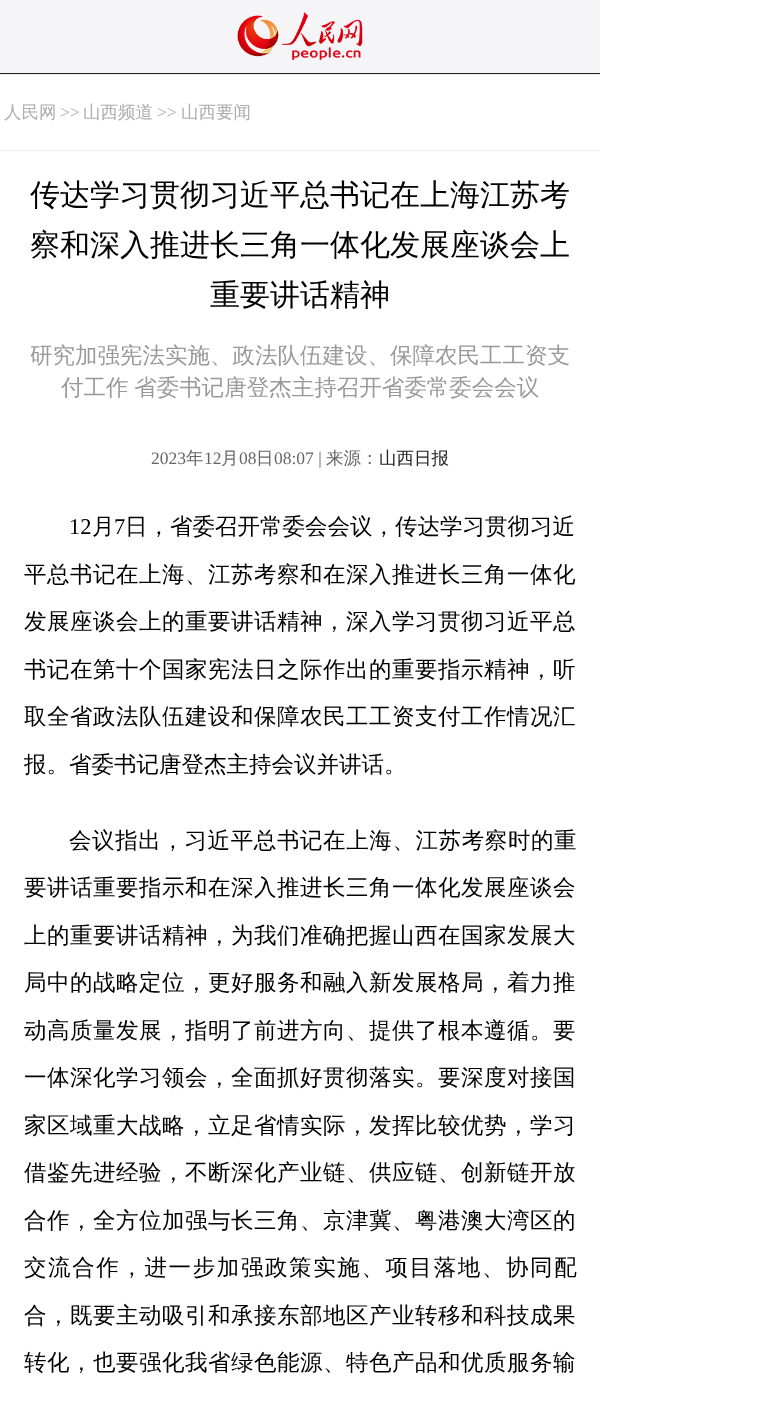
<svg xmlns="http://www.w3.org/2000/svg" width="779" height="1407">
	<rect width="100%" height="100%" fill="#FFFFFF" />
	<rect x="0" y="0" width="600" height="73" fill="#F5F5F7" />
	<rect x="0" y="73" width="600" height="1" fill="#212121" />
	<image x="237" y="12" width="126" height="48" href="assets/img1.png" />
	<rect x="0" y="74" width="600" height="1" fill="#E9E9E9" />
	<rect x="0" y="150" width="600" height="1" fill="#ECECEC" />
	<text x="4" y="118" font-family="WenQuanYi Zen Hei" font-size="17.5" font-weight="500" fill="#ADADAD">人民网</text>
	<text x="60" y="118" font-family="Liberation Serif" font-size="17.5" fill="#ADADAD">&gt;&gt;</text>
	<text x="83" y="118" font-family="WenQuanYi Zen Hei" font-size="17.5" font-weight="500" fill="#ADADAD">山西频道</text>
	<text x="157" y="118" font-family="Liberation Serif" font-size="17.5" fill="#ADADAD">&gt;&gt;</text>
	<text x="181" y="118" font-family="WenQuanYi Zen Hei" font-size="17.5" font-weight="500" fill="#ADADAD">山西要闻</text>
	<g font-family="WenQuanYi Zen Hei" font-size="30" font-weight="500" fill="#000000">
		<text x="30" y="205">传达学习贯彻习近平总书记在上海江苏考</text>
		<text x="30" y="255">察和深入推进长三角一体化发展座谈会上</text>
		<text x="210" y="305">重要讲话精神</text>
	</g>
	<g font-family="WenQuanYi Zen Hei" font-size="22.5" font-weight="500" fill="#999999">
		<text x="30" y="363">研究加强宪法实施、政法队伍建设、保障农民工工资支</text>
		<text x="61" y="395" word-spacing="-1">付工作 省委书记唐登杰主持召开省委常委会会议</text>
	</g>
	<text x="151" y="464" font-family="Liberation Serif" font-size="17.5" fill="#666666">2023</text>
	<text x="186" y="464" font-family="WenQuanYi Zen Hei" font-size="17.5" font-weight="500" fill="#666666">年</text>
	<text x="204" y="464" font-family="Liberation Serif" font-size="17.5" fill="#666666">12</text>
	<text x="221" y="464" font-family="WenQuanYi Zen Hei" font-size="17.5" font-weight="500" fill="#666666">月</text>
	<text x="239" y="464" font-family="Liberation Serif" font-size="17.5" fill="#666666">08</text>
	<text x="256" y="464" font-family="WenQuanYi Zen Hei" font-size="17.5" font-weight="500" fill="#666666">日</text>
	<text x="274" y="464" font-family="Liberation Serif" font-size="17.5" fill="#666666">08:07 |</text>
	<text x="326" y="464" font-family="WenQuanYi Zen Hei" font-size="17.5" font-weight="500" fill="#666666">来源：</text>
	<text x="379" y="464" font-family="WenQuanYi Zen Hei" font-size="17.5" font-weight="500" fill="#212121">山西日报</text>
	<text x="69" y="534" font-family="Liberation Serif" font-size="22.5" fill="#000000">12</text>
	<text x="92" y="534" font-family="WenQuanYi Zen Hei" font-size="22.5" font-weight="500" fill="#000000">月</text>
	<text x="114" y="534" font-family="Liberation Serif" font-size="22.5" fill="#000000">7</text>
	<text x="125" y="534" font-family="WenQuanYi Zen Hei" font-size="22.5" font-weight="500" fill="#000000">日，省委召开常委会会议，传达学习贯彻习近</text>
	<g font-family="WenQuanYi Zen Hei" font-size="22.5" font-weight="500" letter-spacing="0.5" fill="#000000">
		<text x="24" y="582">平总书记在上海、江苏考察和在深入推进长三角一体化</text>
		<text x="24" y="629">发展座谈会上的重要讲话精神，深入学习贯彻习近平总</text>
		<text x="24" y="677">书记在第十个国家宪法日之际作出的重要指示精神，听</text>
		<text x="24" y="724">取全省政法队伍建设和保障农民工工资支付工作情况汇</text>
	</g>
	<text x="24" y="772" font-family="WenQuanYi Zen Hei" font-size="22.5" font-weight="500" fill="#000000">报。省委书记唐登杰主持会议并讲话。</text>
	<text x="69" y="848" font-family="WenQuanYi Zen Hei" font-size="22.5" font-weight="500" letter-spacing="0.6" fill="#000000">会议指出，习近平总书记在上海、江苏考察时的重</text>
	<g font-family="WenQuanYi Zen Hei" font-size="22.5" font-weight="500" letter-spacing="0.5" fill="#000000">
		<text x="24" y="895">要讲话重要指示和在深入推进长三角一体化发展座谈会</text>
		<text x="24" y="943">上的重要讲话精神，为我们准确把握山西在国家发展大</text>
		<text x="24" y="990">局中的战略定位，更好服务和融入新发展格局，着力推</text>
		<text x="24" y="1038">动高质量发展，指明了前进方向、提供了根本遵循。要</text>
		<text x="24" y="1085">一体深化学习领会，全面抓好贯彻落实。要深度对接国</text>
		<text x="24" y="1133">家区域重大战略，立足省情实际，发挥比较优势，学习</text>
		<text x="24" y="1180">借鉴先进经验，不断深化产业链、供应链、创新链开放</text>
		<text x="24" y="1228">合作，全方位加强与长三角、京津冀、粤港澳大湾区的</text>
	</g>
	<text x="24" y="1275" font-family="WenQuanYi Zen Hei" font-size="22.5" font-weight="500" letter-spacing="1.6" fill="#000000">交流合作，进一步加强政策实施、项目落地、协同配</text>
	<g font-family="WenQuanYi Zen Hei" font-size="22.5" font-weight="500" letter-spacing="0.5" fill="#000000">
		<text x="24" y="1323">合，既要主动吸引和承接东部地区产业转移和科技成果</text>
		<text x="24" y="1370">转化，也要强化我省绿色能源、特色产品和优质服务输</text>
	</g>
</svg>
